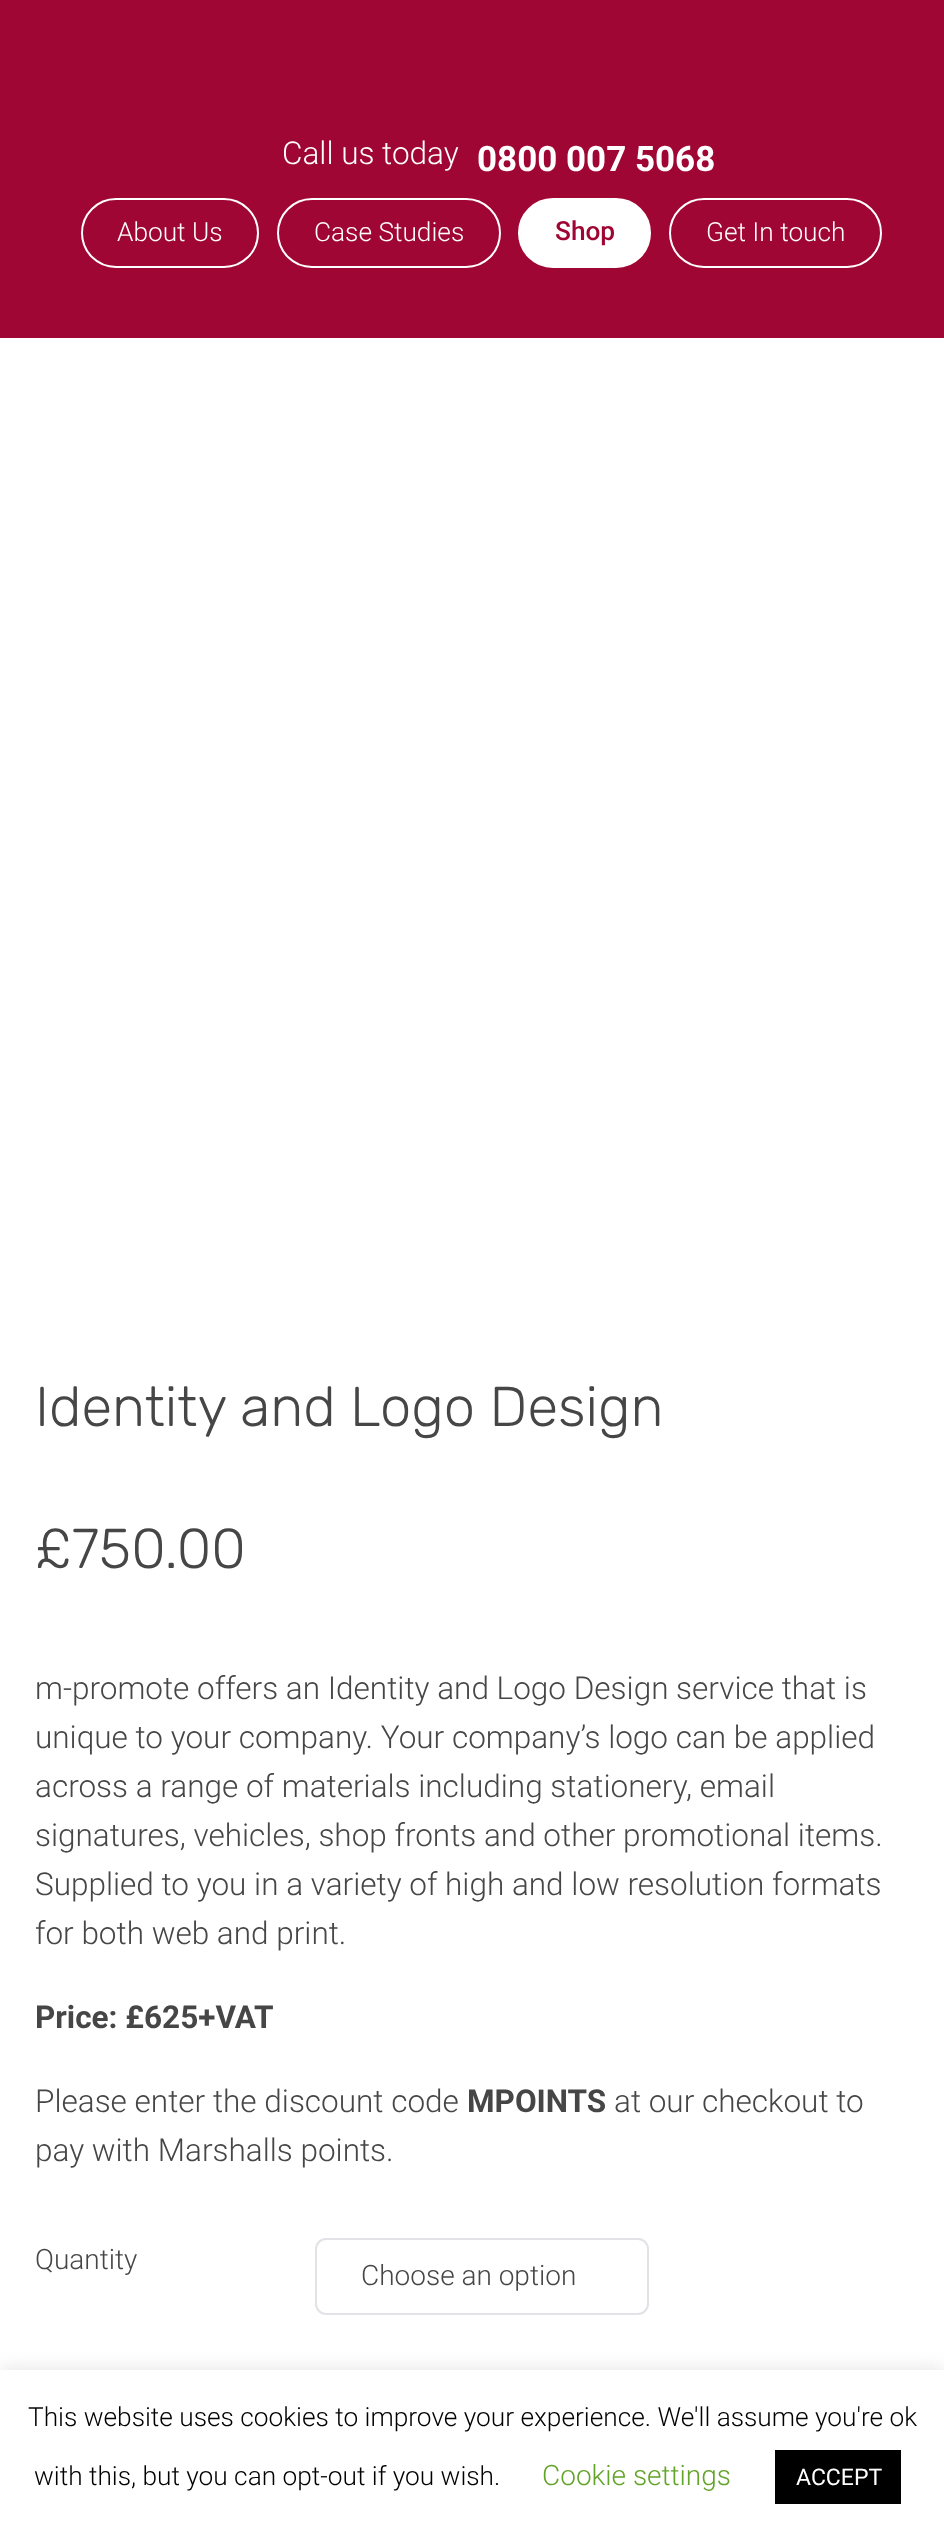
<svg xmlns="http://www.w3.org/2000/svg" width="944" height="2533">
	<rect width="100%" height="100%" fill="#FFFFFF" />
	<rect x="0" y="0" width="944" height="338" fill="#A00634" />
	<text x="282" y="164" font-family="Roboto" font-size="31.5" font-weight="300" fill="#FFFFFF">Call us today</text>
	<text x="477" y="171" font-family="Roboto" font-size="35" font-weight="700" fill="#FFFFFF">0800 007 5068</text>
	<rect x="82" y="199" width="176" height="68" rx="34" fill="none" stroke="#FFFFFF" stroke-width="2" />
	<text x="117" y="241" font-family="Roboto" font-size="26.25" font-weight="300" fill="#FFFFFF">About Us</text>
	<rect x="278" y="199" width="222" height="68" rx="34" fill="none" stroke="#FFFFFF" stroke-width="2" />
	<text x="314" y="241" font-family="Roboto" font-size="26.25" font-weight="300" fill="#FFFFFF">Case Studies</text>
	<rect x="519" y="199" width="131" height="68" rx="34" fill="#FFFFFF" stroke="#FFFFFF" stroke-width="2" />
	<text x="555" y="240" font-family="Roboto" font-size="26.25" font-weight="500" fill="#A00634">Shop</text>
	<rect x="670" y="199" width="211" height="68" rx="34" fill="none" stroke="#FFFFFF" stroke-width="2" />
	<text x="706" y="241" font-family="Roboto" font-size="26.25" font-weight="300" fill="#FFFFFF">Get In touch</text>
	<g font-family="Rubik" font-size="56" font-weight="300" fill="#464646">
		<text x="35" y="1426">Identity and Logo Design</text>
		<text x="35" y="1568">£750.00</text>
	</g>
	<g font-family="Roboto" font-size="31.5" font-weight="300" fill="#464646">
		<text x="35" y="1699">m-promote offers an Identity and Logo Design service that is</text>
		<text x="35" y="1748">unique to your company. Your company’s logo can be applied</text>
		<text x="35" y="1797">across a range of materials including stationery, email</text>
		<text x="35" y="1846">signatures, vehicles, shop fronts and other promotional items.</text>
		<text x="35" y="1895">Supplied to you in a variety of high and low resolution formats</text>
		<text x="35" y="1944">for both web and print.</text>
	</g>
	<text x="35" y="2028" font-family="Roboto" font-size="31.5" font-weight="700" fill="#464646">Price: £625+VAT</text>
	<text x="35" y="2112" font-family="Roboto" font-size="31.5" font-weight="300" fill="#464646">Please enter the discount code</text>
	<text x="467" y="2112" font-family="Roboto" font-size="31.5" font-weight="700" fill="#464646">MPOINTS</text>
	<g font-family="Roboto" font-size="31.5" font-weight="300" fill="#464646">
		<text x="614" y="2112">at our checkout to</text>
		<text x="35" y="2161">pay with Marshalls points.</text>
	</g>
	<text x="35" y="2269" font-family="Roboto" font-size="28" font-weight="300" fill="#464646">Quantity</text>
	<rect x="316" y="2239" width="332" height="75" rx="10" fill="none" stroke="#E2E2E7" stroke-width="2" />
	<text x="361" y="2285" font-family="Roboto" font-size="28" font-weight="300" fill="#464646">Choose an option</text>
	<rect x="0" y="2368" width="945" height="164" fill="#ACABAB" fill-opacity="0.3" filter="blur(9px)" />
	<rect x="0" y="2370" width="944" height="163" fill="#FFFFFF" />
	<g font-family="Roboto" font-size="26.25" font-weight="300" fill="#000000">
		<text x="28" y="2426">This website uses cookies to improve your experience. We'll assume you're ok</text>
		<text x="34" y="2485">with this, but you can opt-out if you wish.</text>
	</g>
	<text x="542" y="2485" font-family="Roboto" font-size="28" font-weight="300" fill="#62A329">Cookie settings</text>
	<rect x="775" y="2450" width="126" height="54" fill="#000000" />
	<text x="796" y="2485" font-family="Roboto" font-size="23" fill="#FFFFFF">ACCEPT</text>
</svg>
